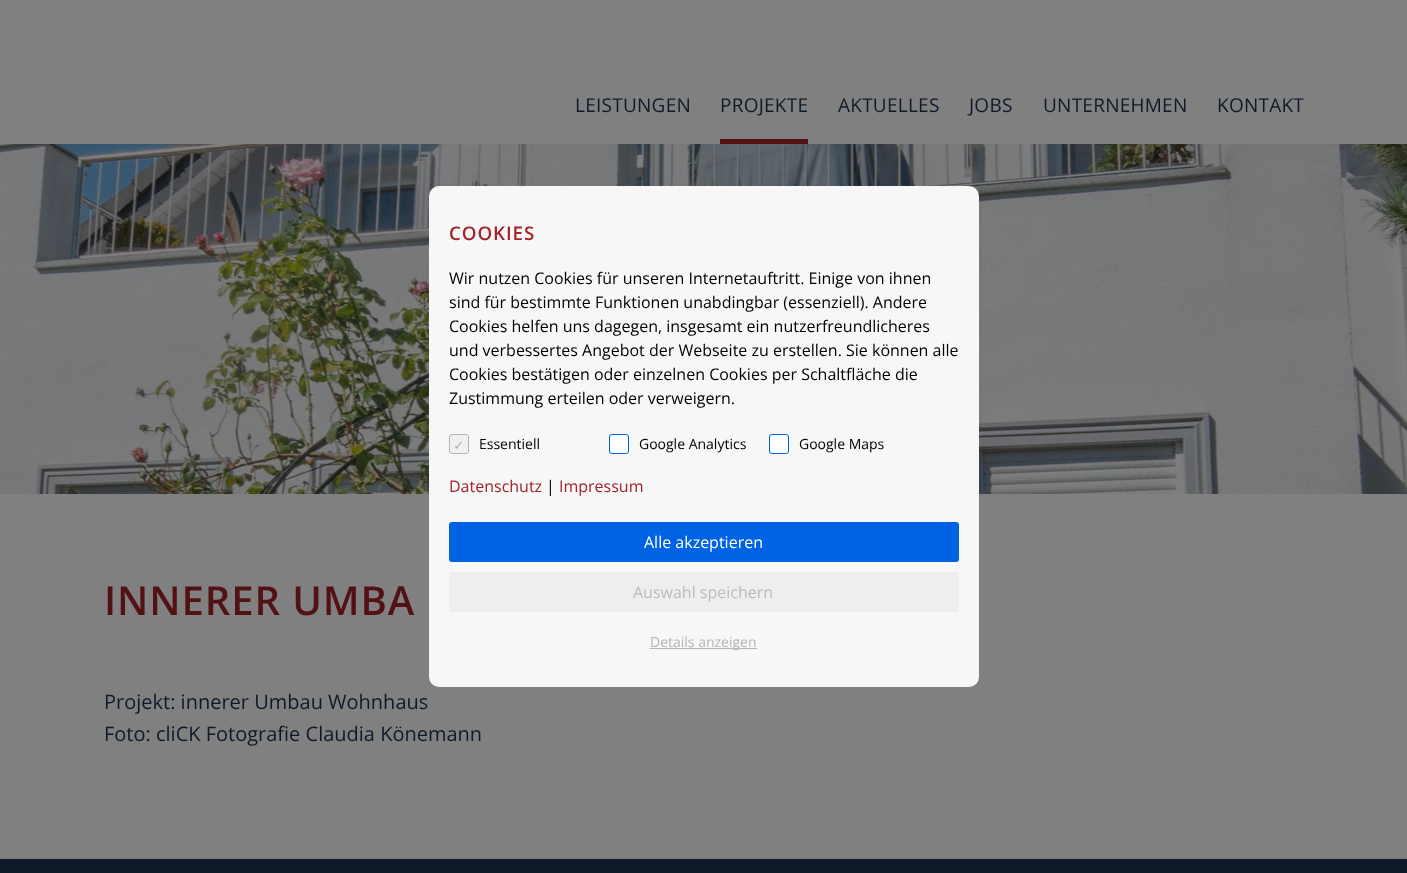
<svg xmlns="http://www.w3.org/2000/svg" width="1407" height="873">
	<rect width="100%" height="100%" fill="#808080" />
	<text x="575" y="112" font-family="Open Sans" font-size="19" letter-spacing="0.25" fill="#0E1A2A">LEISTUNGEN</text>
	<rect x="720" y="139" width="88" height="5" fill="#521214" />
	<g font-family="Open Sans" font-size="19" letter-spacing="0.25" fill="#0E1A2A">
		<text x="720" y="112">PROJEKTE</text>
		<text x="838" y="112">AKTUELLES</text>
		<text x="969" y="112">JOBS</text>
		<text x="1043" y="112">UNTERNEHMEN</text>
		<text x="1217" y="112">KONTAKT</text>
	</g>
	<image x="0" y="144" width="1407" height="350" href="assets/img1.png" />
	<text x="104" y="615" font-family="Open Sans" font-size="40" font-weight="600" letter-spacing="0.9" fill="#521214">INNERER UMBA</text>
	<g font-family="Open Sans" font-size="20" fill="#0E1A2A">
		<text x="104" y="709">Projekt: innerer Umbau Wohnhaus</text>
		<text x="104" y="741">Foto: cliCK Fotografie Claudia Könemann</text>
	</g>
	<rect x="0" y="859" width="1407" height="14" fill="#0E1A2A" />
	<rect x="429" y="186" width="550" height="501" rx="10" fill="#F7F7F7" />
	<text x="449" y="240" font-family="Open Sans" font-size="18.75" font-weight="600" letter-spacing="0.9" fill="#A32328">COOKIES</text>
	<g font-family="Open Sans" font-size="16" fill="#000000">
		<text x="449" y="284">Wir nutzen Cookies für unseren Internetauftritt. Einige von ihnen</text>
		<text x="449" y="308">sind für bestimmte Funktionen unabdingbar (essenziell). Andere</text>
		<text x="449" y="332">Cookies helfen uns dagegen, insgesamt ein nutzerfreundlicheres</text>
		<text x="449" y="356">und verbessertes Angebot der Webseite zu erstellen. Sie können alle</text>
		<text x="449" y="380">Cookies bestätigen oder einzelnen Cookies per Schaltfläche die</text>
		<text x="449" y="404">Zustimmung erteilen oder verweigern.</text>
	</g>
	<rect x="449.5" y="434.5" width="19" height="19" rx="2.5" fill="#F0F0F0" stroke="#B5B5B5" />
	<text x="453" y="450" font-family="DejaVu Sans" font-size="14" fill="#B5B5B5">✓</text>
	<text x="479" y="449" font-family="Open Sans" font-size="14" fill="#000000">Essentiell</text>
	<rect x="609.5" y="434.5" width="19" height="19" rx="2.5" fill="#FFFFFF" stroke="#0063E3" />
	<text x="639" y="449" font-family="Open Sans" font-size="14" fill="#000000">Google Analytics</text>
	<rect x="769.5" y="434.5" width="19" height="19" rx="2.5" fill="#FFFFFF" stroke="#0063E3" />
	<text x="799" y="449" font-family="Open Sans" font-size="14" fill="#000000">Google Maps</text>
	<text x="449" y="492" font-family="Open Sans" font-size="16" fill="#A32328">Datenschutz</text>
	<text x="546" y="492" font-family="Open Sans" font-size="16" fill="#000000">|</text>
	<text x="559" y="492" font-family="Open Sans" font-size="16" fill="#A32328">Impressum</text>
	<rect x="449" y="522" width="510" height="40" rx="3" fill="#0063E3" />
	<text x="644" y="548" font-family="Open Sans" font-size="16" fill="#FFFFFF">Alle akzeptieren</text>
	<rect x="449" y="572" width="510" height="40" rx="3" fill="#EEEEEE" />
	<text x="633" y="598" font-family="Open Sans" font-size="16" fill="#BBBBBB">Auswahl speichern</text>
	<rect x="650" y="648" width="107" height="1" fill="#B5B5B5" />
	<text x="650" y="647" font-family="Open Sans" font-size="14" fill="#B5B5B5">Details anzeigen</text>
</svg>
